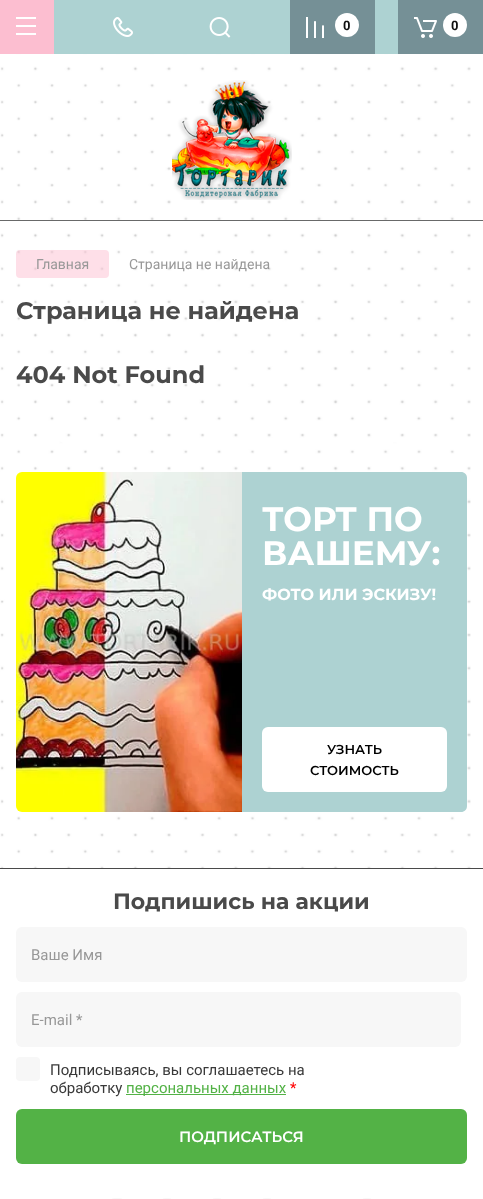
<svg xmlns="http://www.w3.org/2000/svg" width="483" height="1199">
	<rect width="100%" height="100%" fill="#FFFFFF" />
	<image x="0" y="54" width="471" height="814" href="assets/img1.png" />
	<rect x="1" y="67" width="470" height="801" fill="#FFFFFF" fill-opacity="0.2" />
	<rect x="54" y="0" width="344" height="54" fill="#ADD2D2" />
	<rect x="0" y="0" width="54" height="54" fill="#FCBED0" />
	<image x="16" y="17" width="20" height="18" href="assets/img2.png" />
	<image x="113" y="17" width="20" height="20" href="assets/img3.png" />
	<image x="209" y="17" width="22" height="21" href="assets/img4.png" />
	<rect x="290" y="0" width="85" height="54" fill="#759096" />
	<image x="306" y="17" width="18" height="21" href="assets/img5.png" />
	<circle cx="347" cy="25" r="12" fill="#FFFFFF" />
	<text x="343" y="30" font-family="Roboto" font-size="13" font-weight="700" fill="#101010">0</text>
	<rect x="398" y="0" width="85" height="54" fill="#759096" />
	<image x="414" y="17" width="23" height="21" href="assets/img6.png" />
	<circle cx="455" cy="25" r="12" fill="#FFFFFF" />
	<text x="451" y="30" font-family="Roboto" font-size="13" font-weight="700" fill="#101010">0</text>
	<rect x="0" y="220" width="483" height="1" fill="#595A5A" fill-opacity="0.91" />
	<image x="172" y="80" width="120" height="120" href="assets/img7.png" />
	<rect x="0" y="868" width="483" height="1" fill="#4A4A4A" />
	<rect x="16" y="250" width="93" height="28" rx="4" fill="#FCBED0" fill-opacity="0.49" />
	<g font-family="Roboto" font-size="14" fill="#989898">
		<text x="36" y="269">Главная</text>
		<text x="129" y="269">Страница не найдена</text>
	</g>
	<g font-family="Montserrat" font-size="24" font-weight="700" fill="#4A4A4A">
		<text x="16" y="319">Страница не найдена</text>
		<text x="16" y="383">404 Not Found</text>
	</g>
	<image x="16" y="472" width="226" height="340" href="assets/img8.png" />
	<path d="M242 472H461C464.5 472 467 474.5 467 478V806C467 809.5 464.5 812 461 812H242Z" fill="#ADD2D2" />
	<g font-family="Montserrat" font-size="34" font-weight="700" fill="#FFFFFF">
		<text x="262" y="531">ТОРТ ПО</text>
		<text x="262" y="565">ВАШЕМУ:</text>
	</g>
	<text x="262" y="600" font-family="Montserrat" font-size="16" font-weight="700" fill="#FFFFFF">ФОТО ИЛИ ЭСКИЗУ!</text>
	<rect x="262" y="727" width="185" height="65" rx="6" fill="#FFFFFF" />
	<g font-family="Montserrat" font-size="13" font-weight="600" fill="#000000">
		<text x="327" y="754">УЗНАТЬ</text>
		<text x="310" y="775">СТОИМОСТЬ</text>
	</g>
	<text x="113" y="909" font-family="Montserrat" font-size="22" font-weight="700" fill="#4A4A4A">Подпишись на акции</text>
	<rect x="16" y="927" width="451" height="55" rx="6" fill="#F7F7F7" />
	<text x="31" y="960" font-family="Roboto" font-size="15" fill="#989898">Ваше Имя</text>
	<rect x="16" y="992" width="445" height="55" rx="6" fill="#F7F7F7" />
	<text x="31" y="1025" font-family="Roboto" font-size="15" fill="#989898">E-mail *</text>
	<rect x="16" y="1057" width="24" height="24" rx="4" fill="#F7F7F7" />
	<g font-family="Roboto" font-size="15" fill="#393939">
		<text x="50" y="1075">Подписываясь, вы соглашаетесь на</text>
		<text x="50" y="1093">обработку</text>
	</g>
	<rect x="126" y="1094" width="160" height="1" fill="#53B246" />
	<text x="126" y="1093" font-family="Roboto" font-size="15" fill="#53B246">персональных данных</text>
	<text x="290" y="1093" font-family="Roboto" font-size="15" fill="#FF0000">*</text>
	<rect x="16" y="1109" width="451" height="55" rx="6" fill="#53B246" />
	<text x="179" y="1142" font-family="Montserrat" font-size="15" font-weight="600" fill="#FFFFFF">ПОДПИСАТЬСЯ</text>
	<image x="112" y="1198" width="10" height="1" href="assets/img9.png" />
	<image x="163" y="1198" width="8" height="1" href="assets/img10.png" />
	<image x="213" y="1198" width="8" height="1" href="assets/img10.png" />
	<image x="263" y="1198" width="8" height="1" href="assets/img10.png" />
	<image x="363" y="1198" width="8" height="1" href="assets/img10.png" />
</svg>
